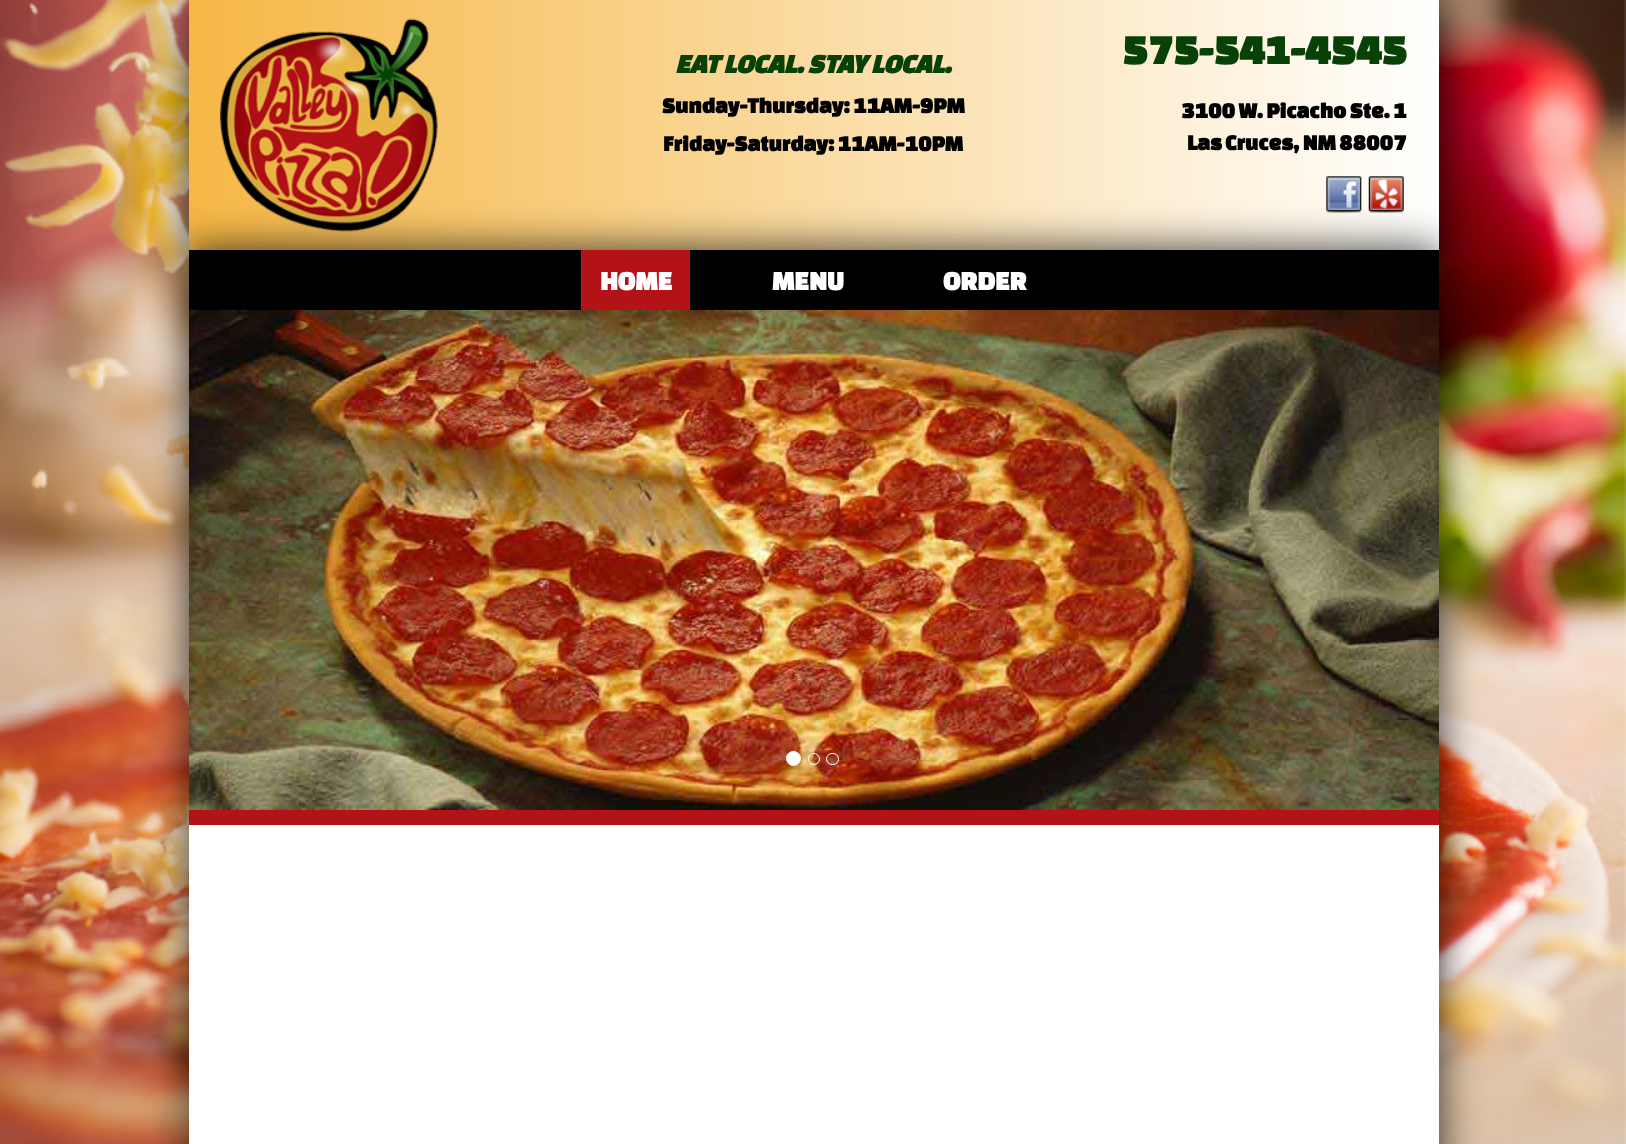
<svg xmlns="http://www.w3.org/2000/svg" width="1626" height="1144">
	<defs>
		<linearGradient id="g1" gradientUnits="userSpaceOnUse" x1="189" y1="125" x2="1439" y2="125"><stop offset="0" stop-color="#F6B745" /><stop offset="1" stop-color="#FFFFFF" /></linearGradient>
	</defs>
	<rect width="100%" height="100%" fill="#FFFFFF" />
	<image x="0" y="0" width="1626" height="1144" href="assets/img1.png" />
	<rect x="188" y="-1" width="1252" height="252" fill="#000000" fill-opacity="0.75" filter="blur(20px)" />
	<rect x="189" y="0" width="1250" height="250" fill="url(#g1)" />
	<image x="220" y="18" width="218" height="214" href="assets/img2.png" />
	<text x="675" y="73" font-family="Changa One" font-size="27.5" font-weight="700" font-style="italic" fill="#084106">EAT LOCAL. STAY LOCAL.</text>
	<g font-family="Changa One" font-size="22.5" font-weight="700" fill="#000000">
		<text x="662" y="113">Sunday-Thursday: 11AM-9PM</text>
		<text x="663" y="151">Friday-Saturday: 11AM-10PM</text>
	</g>
	<text x="1122" y="64" font-family="Changa One" font-size="42.5" font-weight="700" fill="#084106">575-541-4545</text>
	<g font-family="Changa One" font-size="22.5" font-weight="700" fill="#000000">
		<text x="1181" y="118">3100 W. Picacho Ste. 1</text>
		<text x="1187" y="150">Las Cruces, NM 88007</text>
	</g>
	<image x="1326" y="176" width="36" height="37" href="assets/img3.png" />
	<image x="1368" y="176" width="36" height="37" href="assets/img4.png" />
	<rect x="188" y="309" width="1252" height="502" fill="#000000" fill-opacity="0.75" filter="blur(20px)" />
	<rect x="188" y="249" width="1252" height="66" fill="#000000" fill-opacity="0.75" filter="blur(20px)" />
	<rect x="188" y="809" width="1252" height="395" fill="#000000" fill-opacity="0.75" filter="blur(20px)" />
	<image x="189" y="310" width="1250" height="500" href="assets/img5.png" />
	<circle cx="793.5" cy="758.5" r="7" fill="#FFFFFF" stroke="#FFFFFF" />
	<circle cx="814" cy="759" r="5.5" fill="none" stroke="#FFFFFF" />
	<rect x="826.5" y="753.5" width="12" height="11" rx="5.5" fill="none" stroke="#FFFFFF" />
	<rect x="189" y="250" width="1250" height="60" fill="#000000" />
	<rect x="581" y="250" width="109" height="60" fill="#B31217" />
	<g font-family="Changa One" font-size="27.5" font-weight="700" fill="#FFFFFF">
		<text x="600" y="290">HOME</text>
		<text x="772" y="290">MENU</text>
		<text x="943" y="290">ORDER</text>
	</g>
	<rect x="189" y="825" width="1250" height="319" fill="#FFFFFF" />
	<rect x="189" y="810" width="1250" height="15" fill="#B31217" />
</svg>
